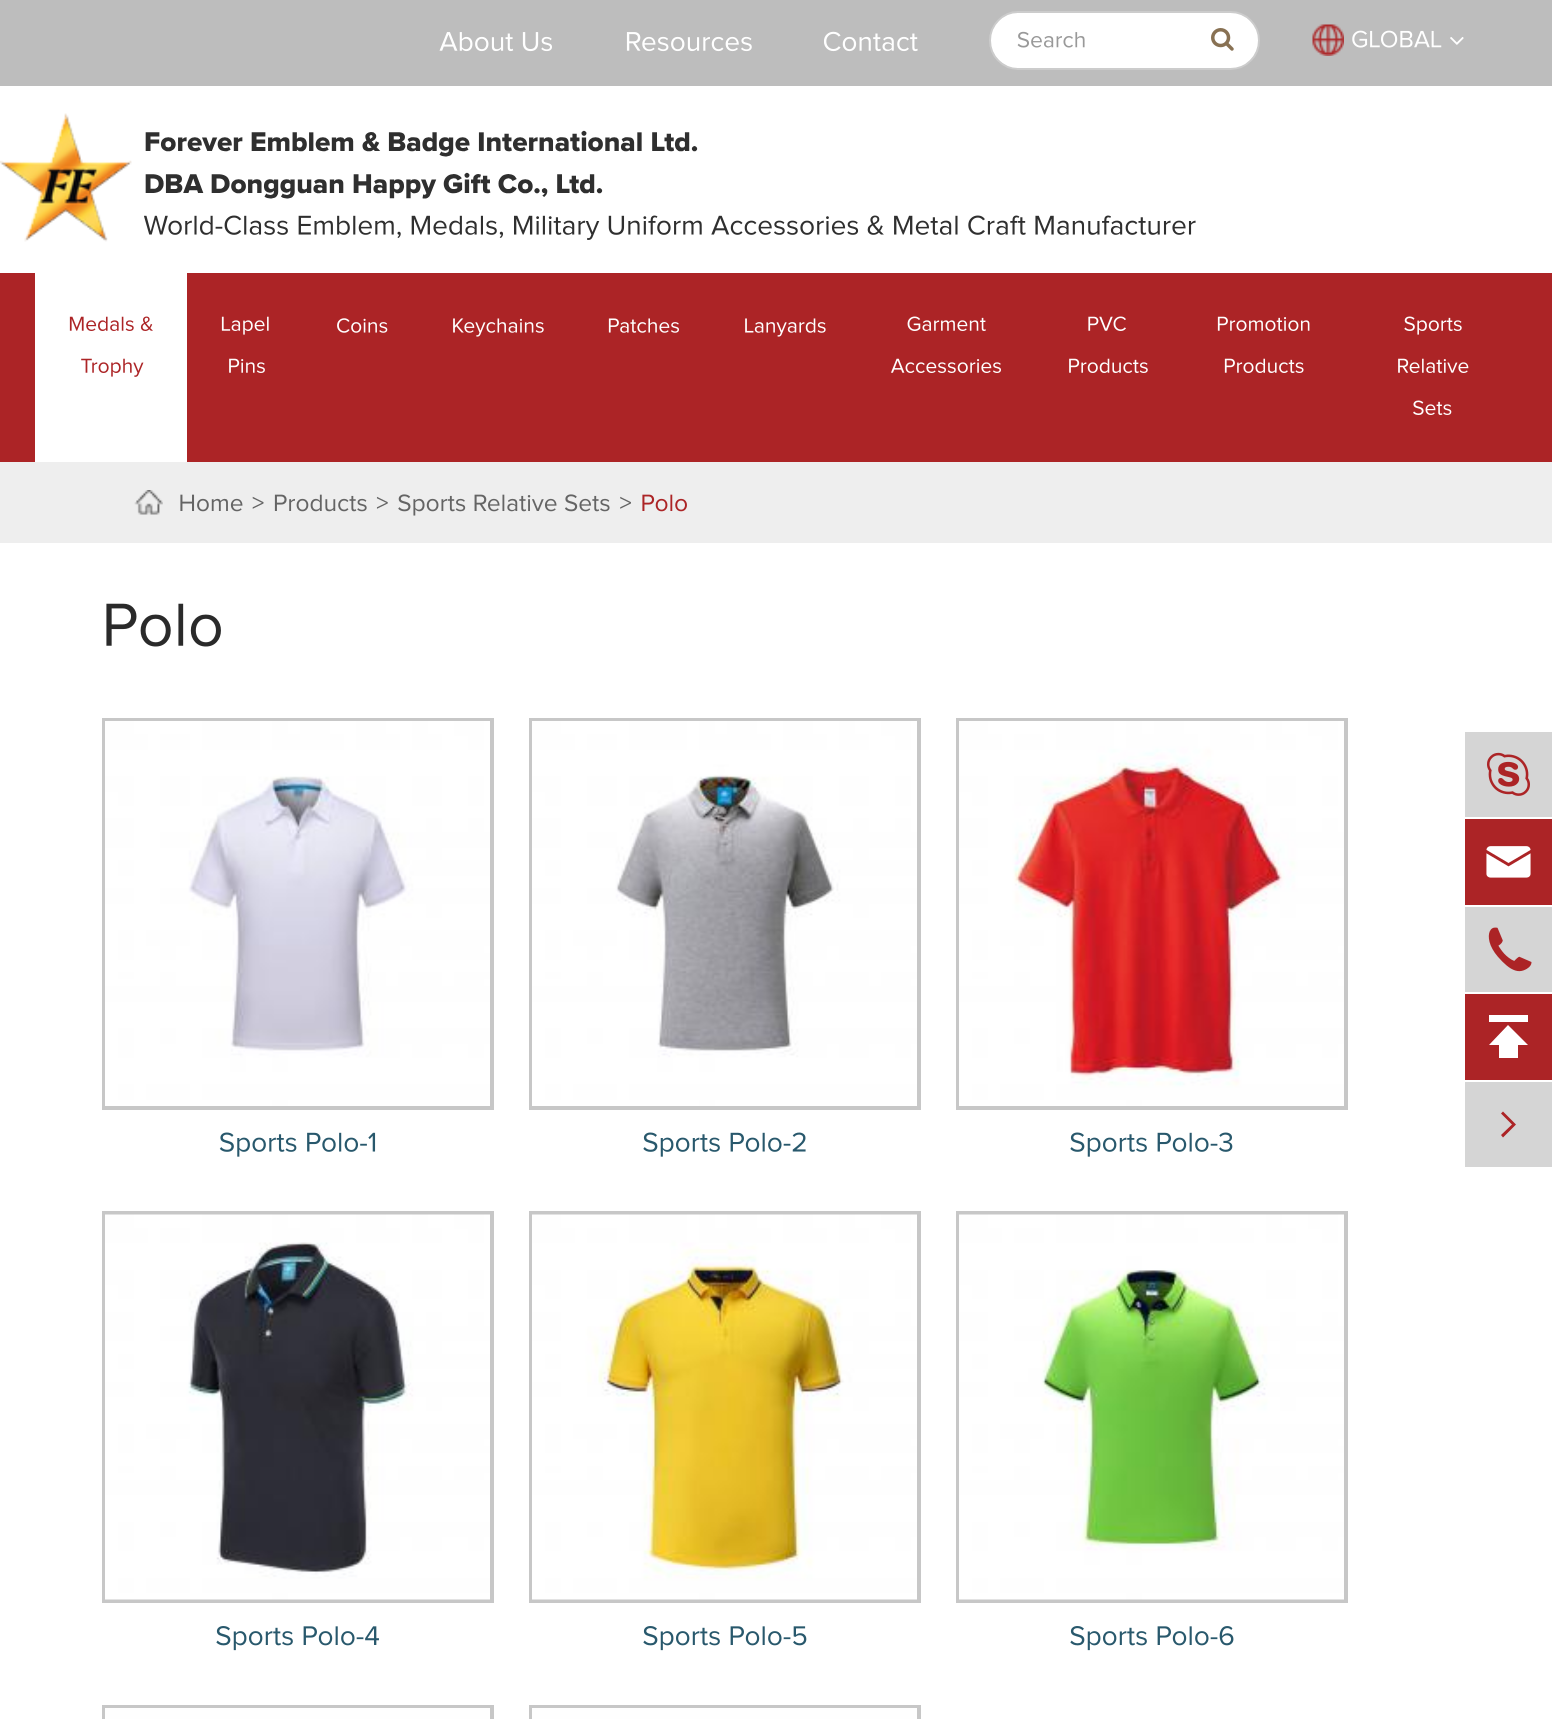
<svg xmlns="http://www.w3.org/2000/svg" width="1552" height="1719">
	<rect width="100%" height="100%" fill="#FFFFFF" />
	<rect x="0" y="0" width="1552" height="86" fill="#BDBDBD" />
	<image x="439" y="32" width="113" height="20" href="assets/img1.png" />
	<image x="626" y="32" width="126" height="20" href="assets/img2.png" />
	<image x="824" y="31" width="94" height="21" href="assets/img3.png" />
	<rect x="990" y="12" width="269" height="57" rx="28.5" fill="#FFFFFF" stroke="#CCCCCC" stroke-width="2" />
	<image x="1017" y="31" width="68" height="17" href="assets/img4.png" />
	<image x="1211" y="28" width="23" height="23" href="assets/img5.png" />
	<image x="1312" y="24" width="32" height="32" href="assets/img6.png" />
	<image x="1352" y="30" width="90" height="18" href="assets/img7.png" />
	<image x="1450" y="37" width="14" height="8" href="assets/img8.png" />
	<image x="0" y="113" width="132" height="129" href="assets/img9.png" />
	<g font-family="Proxima Nova" font-size="28" font-weight="800" fill="#2F2F2F">
		<text x="144" y="151">Forever Emblem &amp; Badge International Ltd.</text>
		<text x="144" y="193">DBA Dongguan Happy Gift Co., Ltd.</text>
	</g>
	<image x="144" y="215" width="1052" height="25" href="assets/img10.png" />
	<rect x="0" y="273" width="1552" height="189" fill="#AC2426" />
	<rect x="35" y="273" width="152" height="189" fill="#FFFFFF" />
	<image x="69" y="316" width="84" height="15" href="assets/img11.png" />
	<image x="81" y="358" width="63" height="19" href="assets/img12.png" />
	<image x="221" y="316" width="48" height="19" href="assets/img13.png" />
	<image x="229" y="358" width="36" height="15" href="assets/img14.png" />
	<image x="337" y="318" width="51" height="15" href="assets/img15.png" />
	<image x="453" y="318" width="91" height="19" href="assets/img16.png" />
	<image x="608" y="318" width="71" height="15" href="assets/img17.png" />
	<image x="745" y="318" width="81" height="19" href="assets/img18.png" />
	<image x="907" y="316" width="79" height="15" href="assets/img19.png" />
	<image x="891" y="358" width="110" height="15" href="assets/img20.png" />
	<image x="1088" y="316" width="38" height="15" href="assets/img21.png" />
	<image x="1069" y="358" width="79" height="15" href="assets/img22.png" />
	<image x="1217" y="316" width="93" height="15" href="assets/img23.png" />
	<image x="1224" y="358" width="80" height="15" href="assets/img24.png" />
	<image x="1404" y="316" width="58" height="19" href="assets/img25.png" />
	<image x="1398" y="358" width="71" height="15" href="assets/img26.png" />
	<image x="1413" y="400" width="39" height="15" href="assets/img27.png" />
	<rect x="0" y="462" width="1552" height="81" fill="#EEEEEE" />
	<image x="134" y="490" width="29" height="25" href="assets/img28.png" />
	<image x="180" y="494" width="63" height="18" href="assets/img29.png" />
	<image x="252" y="496" width="12" height="13" href="assets/img30.png" />
	<image x="274" y="494" width="93" height="18" href="assets/img31.png" />
	<image x="376" y="496" width="12" height="13" href="assets/img32.png" />
	<image x="398" y="494" width="212" height="22" href="assets/img33.png" />
	<image x="620" y="496" width="11" height="13" href="assets/img34.png" />
	<image x="642" y="494" width="45" height="18" href="assets/img35.png" />
	<image x="106" y="603" width="115" height="44" href="assets/img36.png" />
	<rect x="104" y="720" width="388" height="388" fill="none" stroke="#C7C7C7" stroke-width="4" />
	<image x="105" y="721" width="385" height="385" href="assets/img37.png" />
	<image x="219" y="1132" width="157" height="25" href="assets/img38.png" />
	<rect x="531" y="720" width="388" height="388" fill="none" stroke="#C7C7C7" stroke-width="4" />
	<image x="532" y="721" width="385" height="385" href="assets/img39.png" />
	<image x="643" y="1132" width="163" height="25" href="assets/img40.png" />
	<rect x="958" y="720" width="388" height="388" fill="none" stroke="#C7C7C7" stroke-width="4" />
	<image x="959" y="721" width="385" height="385" href="assets/img41.png" />
	<image x="1070" y="1132" width="163" height="25" href="assets/img42.png" />
	<rect x="104" y="1213" width="388" height="388" fill="none" stroke="#C7C7C7" stroke-width="4" />
	<image x="105" y="1214" width="385" height="386" href="assets/img43.png" />
	<image x="216" y="1626" width="163" height="25" href="assets/img44.png" />
	<rect x="531" y="1213" width="388" height="388" fill="none" stroke="#C7C7C7" stroke-width="4" />
	<image x="532" y="1214" width="385" height="386" href="assets/img45.png" />
	<image x="643" y="1626" width="164" height="25" href="assets/img46.png" />
	<rect x="958" y="1213" width="388" height="388" fill="none" stroke="#C7C7C7" stroke-width="4" />
	<image x="959" y="1214" width="385" height="386" href="assets/img47.png" />
	<image x="1070" y="1626" width="164" height="25" href="assets/img48.png" />
	<rect x="104" y="1707" width="388" height="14" fill="none" stroke="#C7C7C7" stroke-width="4" />
	<rect x="105" y="1708" width="385" height="11" fill="#FEFEFE" />
	<rect x="531" y="1707" width="388" height="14" fill="none" stroke="#C7C7C7" stroke-width="4" />
	<rect x="532" y="1708" width="385" height="11" fill="#FEFEFE" />
	<rect x="1465" y="732" width="87" height="85" fill="#D5D5D5" />
	<image x="1487" y="752" width="43" height="44" href="assets/img49.png" />
	<rect x="1465" y="819" width="87" height="86" fill="#AC2426" />
	<image x="1486" y="846" width="45" height="32" href="assets/img50.png" />
	<rect x="1465" y="907" width="87" height="85" fill="#D5D5D5" />
	<image x="1488" y="927" width="44" height="45" href="assets/img51.png" />
	<rect x="1465" y="994" width="87" height="86" fill="#AC2426" />
	<path d="M1489 1015H1528V1022H1489ZM1528 1045H1518V1058H1499V1045H1489L1508 1025Z" fill="#FFFFFF" />
	<rect x="1465" y="1082" width="87" height="85" fill="#D5D5D5" />
	<path d="M1503 1137.5L1501 1135L1512 1124.5L1501 1113.5L1503 1111.5L1516 1124.5Z" fill="#AC2426" />
</svg>
